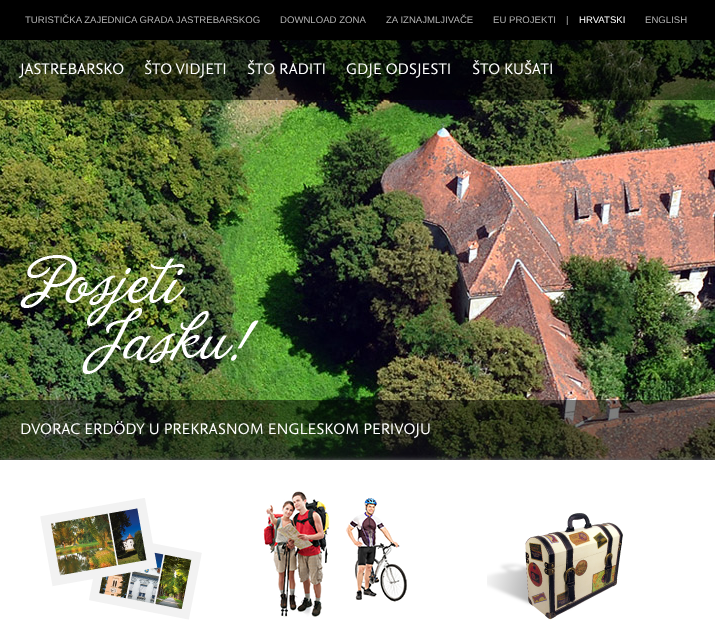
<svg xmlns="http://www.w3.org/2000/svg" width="715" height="621">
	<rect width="100%" height="100%" fill="#FFFFFF" />
	<rect x="0" y="0" width="715" height="40" fill="#000000" />
	<g font-family="Liberation Sans" font-size="9.6" fill="#B2B2B2">
		<text x="25" y="23">TURISTIČKA ZAJEDNICA GRADA JASTREBARSKOG</text>
		<text x="280" y="23">DOWNLOAD ZONA</text>
		<text x="386" y="23">ZA IZNAJMLJIVAČE</text>
		<text x="493" y="23">EU PROJEKTI</text>
		<text x="566" y="23">|</text>
	</g>
	<text x="579" y="23" font-family="Liberation Sans" font-size="9.6" fill="#FFFFFF">HRVATSKI</text>
	<text x="645" y="23" font-family="Liberation Sans" font-size="9.6" fill="#B2B2B2">ENGLISH</text>
	<image x="0" y="40" width="715" height="420" href="assets/img1.png" />
	<rect x="0" y="40" width="715" height="60" fill="#000000" fill-opacity="0.5" />
	<g font-family="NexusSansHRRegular" font-size="16" fill="#FFFFFF">
		<text x="20" y="74">JASTREBARSKO</text>
		<text x="144" y="74">ŠTO VIDJETI</text>
		<text x="247" y="74">ŠTO RADITI</text>
		<text x="346" y="74">GDJE ODSJESTI</text>
		<text x="472" y="74">ŠTO KUŠATI</text>
	</g>
	<image x="20" y="255" width="243" height="123" href="assets/img2.png" />
	<rect x="0" y="460" width="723" height="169" fill="#CCCCCC" filter="blur(2.5px)" />
	<rect x="0" y="400" width="715" height="60" fill="#000000" fill-opacity="0.5" />
	<text x="20" y="434" font-family="NexusSansHRRegular" font-size="16" fill="#FFFFFF">DVORAC ERDÖDY U PREKRASNOM ENGLESKOM PERIVOJU</text>
	<rect x="0" y="460" width="715" height="161" fill="#FFFFFF" />
	<image x="40" y="498" width="162" height="122" href="assets/img3.png" />
	<image x="263" y="491" width="144" height="126" href="assets/img4.png" />
	<image x="487" y="513" width="136" height="107" href="assets/img5.png" />
</svg>
